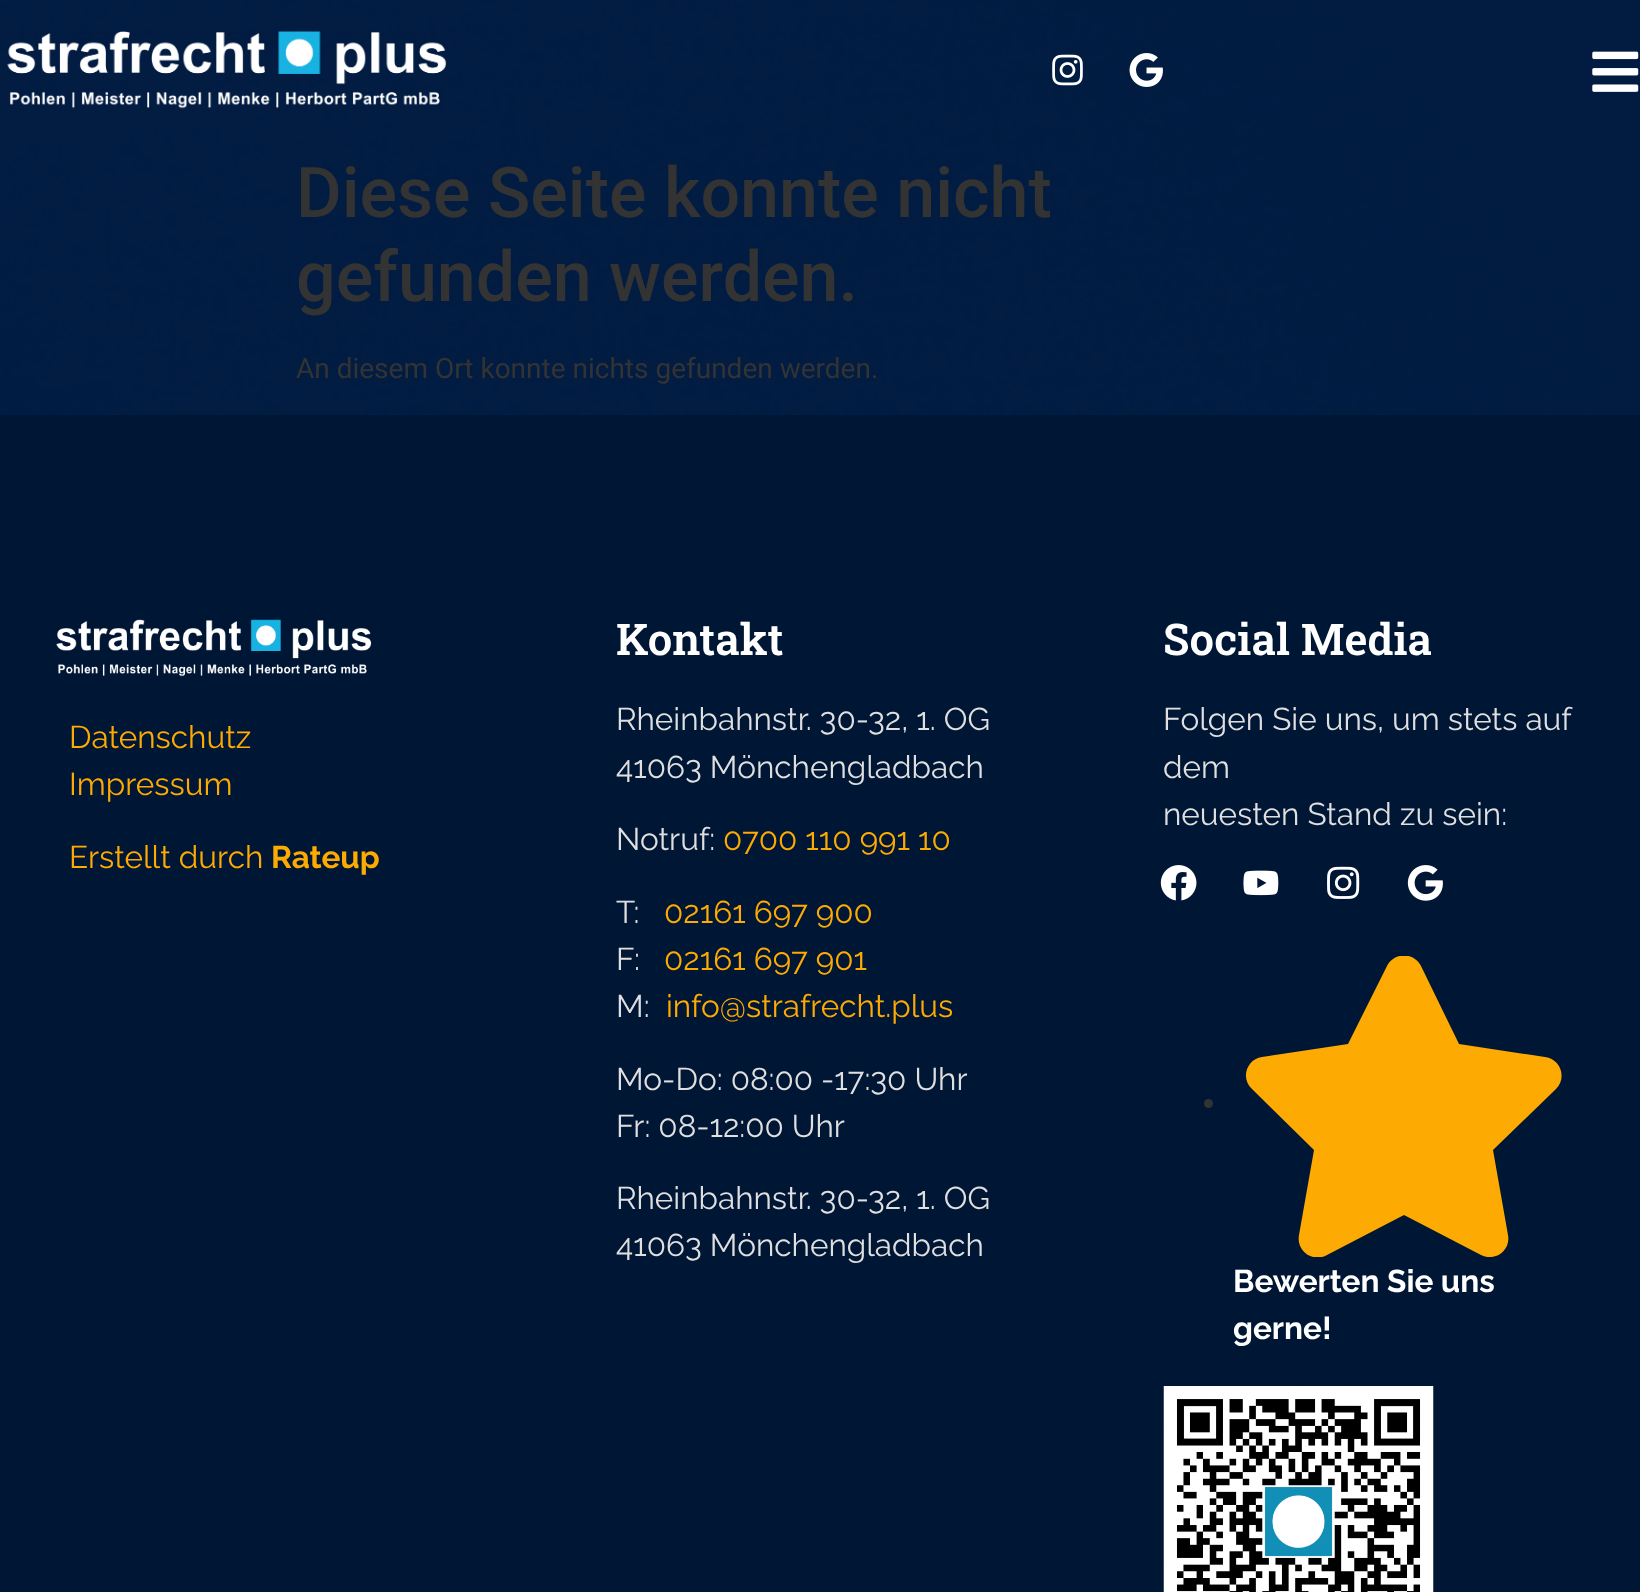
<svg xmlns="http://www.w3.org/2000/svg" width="1640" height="1592">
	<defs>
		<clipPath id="clip1"><rect x="1234" y="956" width="339" height="301" /></clipPath>
	</defs>
	<rect width="100%" height="100%" fill="#FFFFFF" />
	<image x="0" y="0" width="1640" height="415" href="assets/img1.png" />
	<image x="7" y="31" width="440" height="78" href="assets/img2.png" />
	<image x="1052" y="54" width="31" height="32" href="assets/img3.png" />
	<image x="1129" y="53" width="34" height="34" href="assets/img4.png" />
	<image x="1592" y="51" width="47" height="41" href="assets/img5.png" />
	<g font-family="Roboto" font-size="70" font-weight="500" fill="#333333">
		<text x="296" y="217">Diese Seite konnte nicht</text>
		<text x="296" y="301">gefunden werden.</text>
	</g>
	<text x="296" y="378" font-family="Roboto" font-size="28" fill="#333333">An diesem Ort konnte nichts gefunden werden.</text>
	<rect x="0" y="415" width="1640" height="1177" fill="#001635" />
	<image x="56" y="619" width="316" height="58" href="assets/img6.png" />
	<g font-family="Raleway" font-size="31.5" fill="#FDAA03">
		<text x="69" y="748">Datenschutz</text>
		<text x="69" y="795">Impressum</text>
		<text x="69" y="868">Erstellt durch</text>
	</g>
	<text x="271" y="868" font-family="Raleway" font-size="31.5" font-weight="700" fill="#FDAA03">Rateup</text>
	<text x="616" y="655" font-family="Roboto Slab" font-size="43.75" font-weight="600" fill="#FFFFFF">Kontakt</text>
	<g font-family="Raleway" font-size="31.5" fill="#DFDFDF">
		<text x="616" y="730">Rheinbahnstr. 30-32, 1. OG</text>
		<text x="616" y="778">41063 Mönchengladbach</text>
		<text x="616" y="850">Notruf:</text>
	</g>
	<text x="723" y="850" font-family="Raleway" font-size="31.5" fill="#FDAA03">0700 110 991 10</text>
	<text x="616" y="923" font-family="Raleway" font-size="31.5" fill="#DFDFDF">T:</text>
	<text x="664" y="923" font-family="Raleway" font-size="31.5" fill="#FDAA03">02161 697 900</text>
	<text x="616" y="970" font-family="Raleway" font-size="31.5" fill="#DFDFDF">F:</text>
	<text x="664" y="970" font-family="Raleway" font-size="31.5" fill="#FDAA03">02161 697 901</text>
	<text x="616" y="1017" font-family="Raleway" font-size="31.5" fill="#DFDFDF">M:</text>
	<text x="666" y="1017" font-family="Raleway" font-size="31.5" fill="#FDAA03">info@strafrecht.plus</text>
	<g font-family="Raleway" font-size="31.5" fill="#DFDFDF">
		<text x="616" y="1090">Mo-Do: 08:00 -17:30 Uhr</text>
		<text x="616" y="1137">Fr: 08-12:00 Uhr</text>
		<text x="616" y="1209">Rheinbahnstr. 30-32, 1. OG</text>
		<text x="616" y="1256">41063 Mönchengladbach</text>
	</g>
	<text x="1163" y="655" font-family="Roboto Slab" font-size="43.75" font-weight="600" fill="#FFFFFF">Social Media</text>
	<g font-family="Raleway" font-size="31.5" fill="#DFDFDF">
		<text x="1163" y="730">Folgen Sie uns, um stets auf</text>
		<text x="1163" y="778">dem</text>
		<text x="1163" y="825">neuesten Stand zu sein:</text>
	</g>
	<image x="1160" y="865" width="37" height="36" href="assets/img7.png" />
	<image x="1243" y="870" width="36" height="26" href="assets/img8.png" />
	<image x="1327" y="866" width="33" height="33" href="assets/img9.png" />
	<image x="1407" y="865" width="36" height="36" href="assets/img10.png" />
	<circle cx="1208.5" cy="1103.5" r="4.5" fill="#333333" />
	<g clip-path="url(#clip1)">
		<path d="M1387 966L1348 1044L1262 1057C1247 1059 1240 1078 1252 1089L1314 1150L1299 1235C1296 1251 1313 1263 1327 1255L1404 1215L1481 1255C1494 1262 1511 1251 1508 1235L1493 1150L1556 1089C1567 1078 1561 1059 1545 1057L1459 1044L1421 966C1414 952 1394 952 1387 966Z" fill="#FDAA03" />
	</g>
	<g font-family="Raleway" font-size="31.5" font-weight="700" fill="#FFFFFF">
		<text x="1233" y="1292">Bewerten Sie uns</text>
		<text x="1233" y="1339">gerne!</text>
	</g>
	<image x="1163" y="1386" width="271" height="206" href="assets/img11.png" />
</svg>
